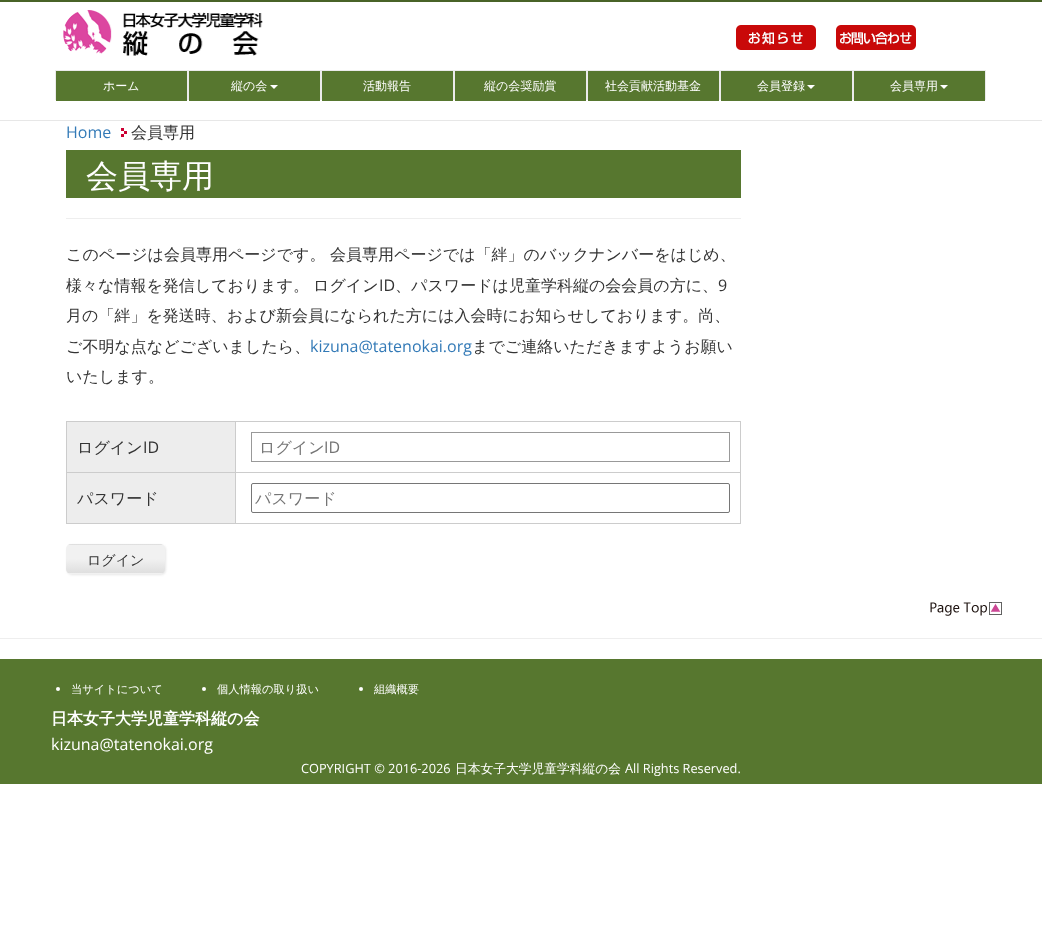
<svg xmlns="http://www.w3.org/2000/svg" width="1042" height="933">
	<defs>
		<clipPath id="clip1"><rect x="66" y="544" width="99" height="30" rx="5" /></clipPath>
		<linearGradient id="g1" gradientUnits="userSpaceOnUse" x1="67" y1="517" x2="67" y2="545"><stop offset="0" stop-color="#FFFFFF" /><stop offset="0.01" stop-color="#F1F1F1" /><stop offset="0.5" stop-color="#F1F1F1" /><stop offset="0.99" stop-color="#DFDFDF" /><stop offset="1" stop-color="#CCCCCC" /></linearGradient>
		<linearGradient id="g2" gradientUnits="userSpaceOnUse" x1="67" y1="545" x2="67" y2="573"><stop offset="0" stop-color="#FFFFFF" /><stop offset="0.01" stop-color="#F1F1F1" /><stop offset="0.5" stop-color="#F1F1F1" /><stop offset="0.99" stop-color="#DFDFDF" /><stop offset="1" stop-color="#CCCCCC" /></linearGradient>
		<linearGradient id="g3" gradientUnits="userSpaceOnUse" x1="67" y1="573" x2="67" y2="601"><stop offset="0" stop-color="#FFFFFF" /><stop offset="0.01" stop-color="#F1F1F1" /><stop offset="0.5" stop-color="#F1F1F1" /><stop offset="0.99" stop-color="#DFDFDF" /><stop offset="1" stop-color="#CCCCCC" /></linearGradient>
	</defs>
	<rect width="100%" height="100%" fill="#FFFFFF" />
	<rect x="0" y="0" width="1042" height="2" fill="#486327" />
	<rect x="0" y="120" width="1042" height="1" fill="#E7E7E7" />
	<image x="63" y="10" width="200" height="46" href="assets/img1.png" />
	<image x="736" y="25" width="80" height="25" href="assets/img2.png" />
	<image x="836" y="25" width="80" height="25" href="assets/img3.png" />
	<rect x="55.5" y="70.5" width="132" height="29" fill="none" stroke="#EBEBEB" />
	<rect x="56" y="71" width="131" height="30" fill="#57772F" />
	<text x="103" y="90" font-family="WenQuanYi Zen Hei" font-size="12" font-weight="500" fill="#FFFFFF">ホーム</text>
	<rect x="188.5" y="70.5" width="132" height="29" fill="none" stroke="#EBEBEB" />
	<rect x="189" y="71" width="131" height="30" fill="#57772F" />
	<text x="231" y="90" font-family="WenQuanYi Zen Hei" font-size="12" font-weight="500" fill="#FFFFFF">縦の会</text>
	<path d="M270 85H278L274 89Z" fill="#FFFFFF" />
	<rect x="321.5" y="70.5" width="132" height="29" fill="none" stroke="#EBEBEB" />
	<rect x="322" y="71" width="131" height="30" fill="#57772F" />
	<text x="363" y="90" font-family="WenQuanYi Zen Hei" font-size="12" font-weight="500" fill="#FFFFFF">活動報告</text>
	<rect x="454.5" y="70.5" width="132" height="29" fill="none" stroke="#EBEBEB" />
	<rect x="455" y="71" width="131" height="30" fill="#57772F" />
	<text x="484" y="90" font-family="WenQuanYi Zen Hei" font-size="12" font-weight="500" fill="#FFFFFF">縦の会奨励賞</text>
	<rect x="587.5" y="70.5" width="132" height="29" fill="none" stroke="#EBEBEB" />
	<rect x="588" y="71" width="131" height="30" fill="#57772F" />
	<text x="605" y="90" font-family="WenQuanYi Zen Hei" font-size="12" font-weight="500" fill="#FFFFFF">社会貢献活動基金</text>
	<rect x="720.5" y="70.5" width="132" height="29" fill="none" stroke="#EBEBEB" />
	<rect x="721" y="71" width="131" height="30" fill="#57772F" />
	<text x="757" y="90" font-family="WenQuanYi Zen Hei" font-size="12" font-weight="500" fill="#FFFFFF">会員登録</text>
	<path d="M807 85H815L811 89Z" fill="#FFFFFF" />
	<rect x="853.5" y="70.5" width="132" height="29" fill="none" stroke="#EBEBEB" />
	<rect x="854" y="71" width="131" height="30" fill="#57772F" />
	<text x="890" y="90" font-family="WenQuanYi Zen Hei" font-size="12" font-weight="500" fill="#FFFFFF">会員専用</text>
	<path d="M940 85H948L944 89Z" fill="#FFFFFF" />
	<text x="66" y="138" font-family="Open Sans" font-size="16" fill="#337AB7">Home</text>
	<image x="121" y="128" width="6" height="9" href="assets/img4.png" />
	<text x="131" y="138" font-family="WenQuanYi Zen Hei" font-size="16" font-weight="500" fill="#333333">会員専用</text>
	<rect x="66" y="150" width="675" height="48" fill="#57772F" />
	<text x="86" y="187" font-family="WenQuanYi Zen Hei" font-size="32" font-weight="500" fill="#FFFFFF">会員専用</text>
	<rect x="66" y="218" width="675" height="1" fill="#EEEEEE" />
	<g font-family="WenQuanYi Zen Hei" font-size="16" font-weight="500" fill="#333333">
		<text x="66" y="260">このページは会員専用ページです。</text>
		<text x="330" y="260">会員専用ページでは「絆」のバックナンバーをはじめ、</text>
		<text x="66" y="291">様々な情報を発信しております。</text>
		<text x="313" y="291">ログイン</text>
	</g>
	<text x="379" y="291" font-family="Open Sans" font-size="16" fill="#333333">ID</text>
	<text x="395" y="291" font-family="WenQuanYi Zen Hei" font-size="16" font-weight="500" fill="#333333">、パスワードは児童学科縦の会会員の方に、</text>
	<text x="718" y="291" font-family="Open Sans" font-size="16" fill="#333333">9</text>
	<g font-family="WenQuanYi Zen Hei" font-size="16" font-weight="500" fill="#333333">
		<text x="66" y="321">月の「絆」を発送時、および新会員になられた方には入会時にお知らせしております。尚、</text>
		<text x="66" y="352">ご不明な点などございましたら、</text>
	</g>
	<text x="310" y="352" font-family="Open Sans" font-size="16" fill="#337AB7">kizuna@tatenokai.org</text>
	<g font-family="WenQuanYi Zen Hei" font-size="16" font-weight="500" fill="#333333">
		<text x="472" y="352">までご連絡いただきますようお願い</text>
		<text x="66" y="382">いたします。</text>
	</g>
	<rect x="66" y="421" width="675" height="1" fill="#CCCCCC" />
	<rect x="67" y="422" width="168" height="50" fill="#EDEDED" />
	<rect x="740" y="421" width="1" height="103" fill="#CCCCCC" />
	<rect x="235" y="523" width="506" height="1" fill="#CCCCCC" />
	<rect x="235" y="472" width="1" height="52" fill="#CCCCCC" />
	<rect x="235" y="472" width="506" height="1" fill="#CCCCCC" />
	<rect x="235" y="421" width="1" height="52" fill="#CCCCCC" />
	<rect x="66" y="523" width="170" height="1" fill="#CCCCCC" />
	<rect x="66" y="472" width="1" height="52" fill="#CCCCCC" />
	<rect x="66" y="472" width="170" height="1" fill="#CCCCCC" />
	<rect x="66" y="421" width="1" height="52" fill="#CCCCCC" />
	<text x="77" y="453" font-family="WenQuanYi Zen Hei" font-size="16" font-weight="500" fill="#333333">ログイン</text>
	<text x="143" y="453" font-family="Open Sans" font-size="16" fill="#333333">ID</text>
	<rect x="251.5" y="432.5" width="478" height="29" fill="none" stroke="#999999" />
	<text x="259" y="453" font-family="WenQuanYi Zen Hei" font-size="16" font-weight="500" fill="#757575">ログイン</text>
	<text x="324" y="453" font-family="Open Sans" font-size="16" fill="#757575">ID</text>
	<rect x="67" y="473" width="168" height="50" fill="#EDEDED" />
	<text x="77" y="504" font-family="WenQuanYi Zen Hei" font-size="16" font-weight="500" fill="#333333">パスワード</text>
	<rect x="251.5" y="483.5" width="478" height="29" rx="1.5" fill="none" stroke="#767676" />
	<text x="255" y="504" font-family="WenQuanYi Zen Hei" font-size="16" font-weight="500" fill="#757575">パスワード</text>
	<rect x="67" y="545" width="99" height="30" rx="5" fill="#E7E7E7" filter="blur(1px)" />
	<g clip-path="url(#clip1)">
		<rect x="66" y="544" width="99" height="1" fill="url(#g1)" />
		<rect x="66" y="545" width="99" height="28" fill="url(#g2)" />
		<rect x="66" y="573" width="99" height="1" fill="url(#g3)" />
	</g>
	<text x="87" y="565" font-family="WenQuanYi Zen Hei" font-size="14" font-weight="500" fill="#333333">ログイン</text>
	<image x="930" y="602" width="72" height="14" href="assets/img5.png" />
	<rect x="0" y="638" width="1042" height="1" fill="#EEEEEE" />
	<rect x="0" y="659" width="1042" height="125" fill="#57772F" />
	<circle cx="58" cy="689" r="2" fill="#FFFFFF" />
	<text x="71" y="693" font-family="WenQuanYi Zen Hei" font-size="11.25" font-weight="500" fill="#FFFFFF">当サイトについて</text>
	<circle cx="204" cy="689" r="2" fill="#FFFFFF" />
	<text x="217" y="693" font-family="WenQuanYi Zen Hei" font-size="11.25" font-weight="500" fill="#FFFFFF">個人情報の取り扱い</text>
	<circle cx="361" cy="689" r="2" fill="#FFFFFF" />
	<text x="374" y="693" font-family="WenQuanYi Zen Hei" font-size="11.25" font-weight="500" fill="#FFFFFF">組織概要</text>
	<text x="51" y="724" font-family="WenQuanYi Zen Hei" font-size="16" font-weight="700" fill="#FFFFFF">日本女子大学児童学科縦の会</text>
	<text x="51" y="750" font-family="Open Sans" font-size="16" fill="#FFFFFF">kizuna@tatenokai.org</text>
	<text x="301" y="773" font-family="Open Sans" font-size="12.75" fill="#FFFFFF">COPYRIGHT © 2016-2026</text>
	<text x="455" y="773" font-family="WenQuanYi Zen Hei" font-size="12.75" font-weight="500" fill="#FFFFFF">日本女子大学児童学科縦の会</text>
	<text x="625" y="773" font-family="Open Sans" font-size="12.75" fill="#FFFFFF">All Rights Reserved.</text>
</svg>
